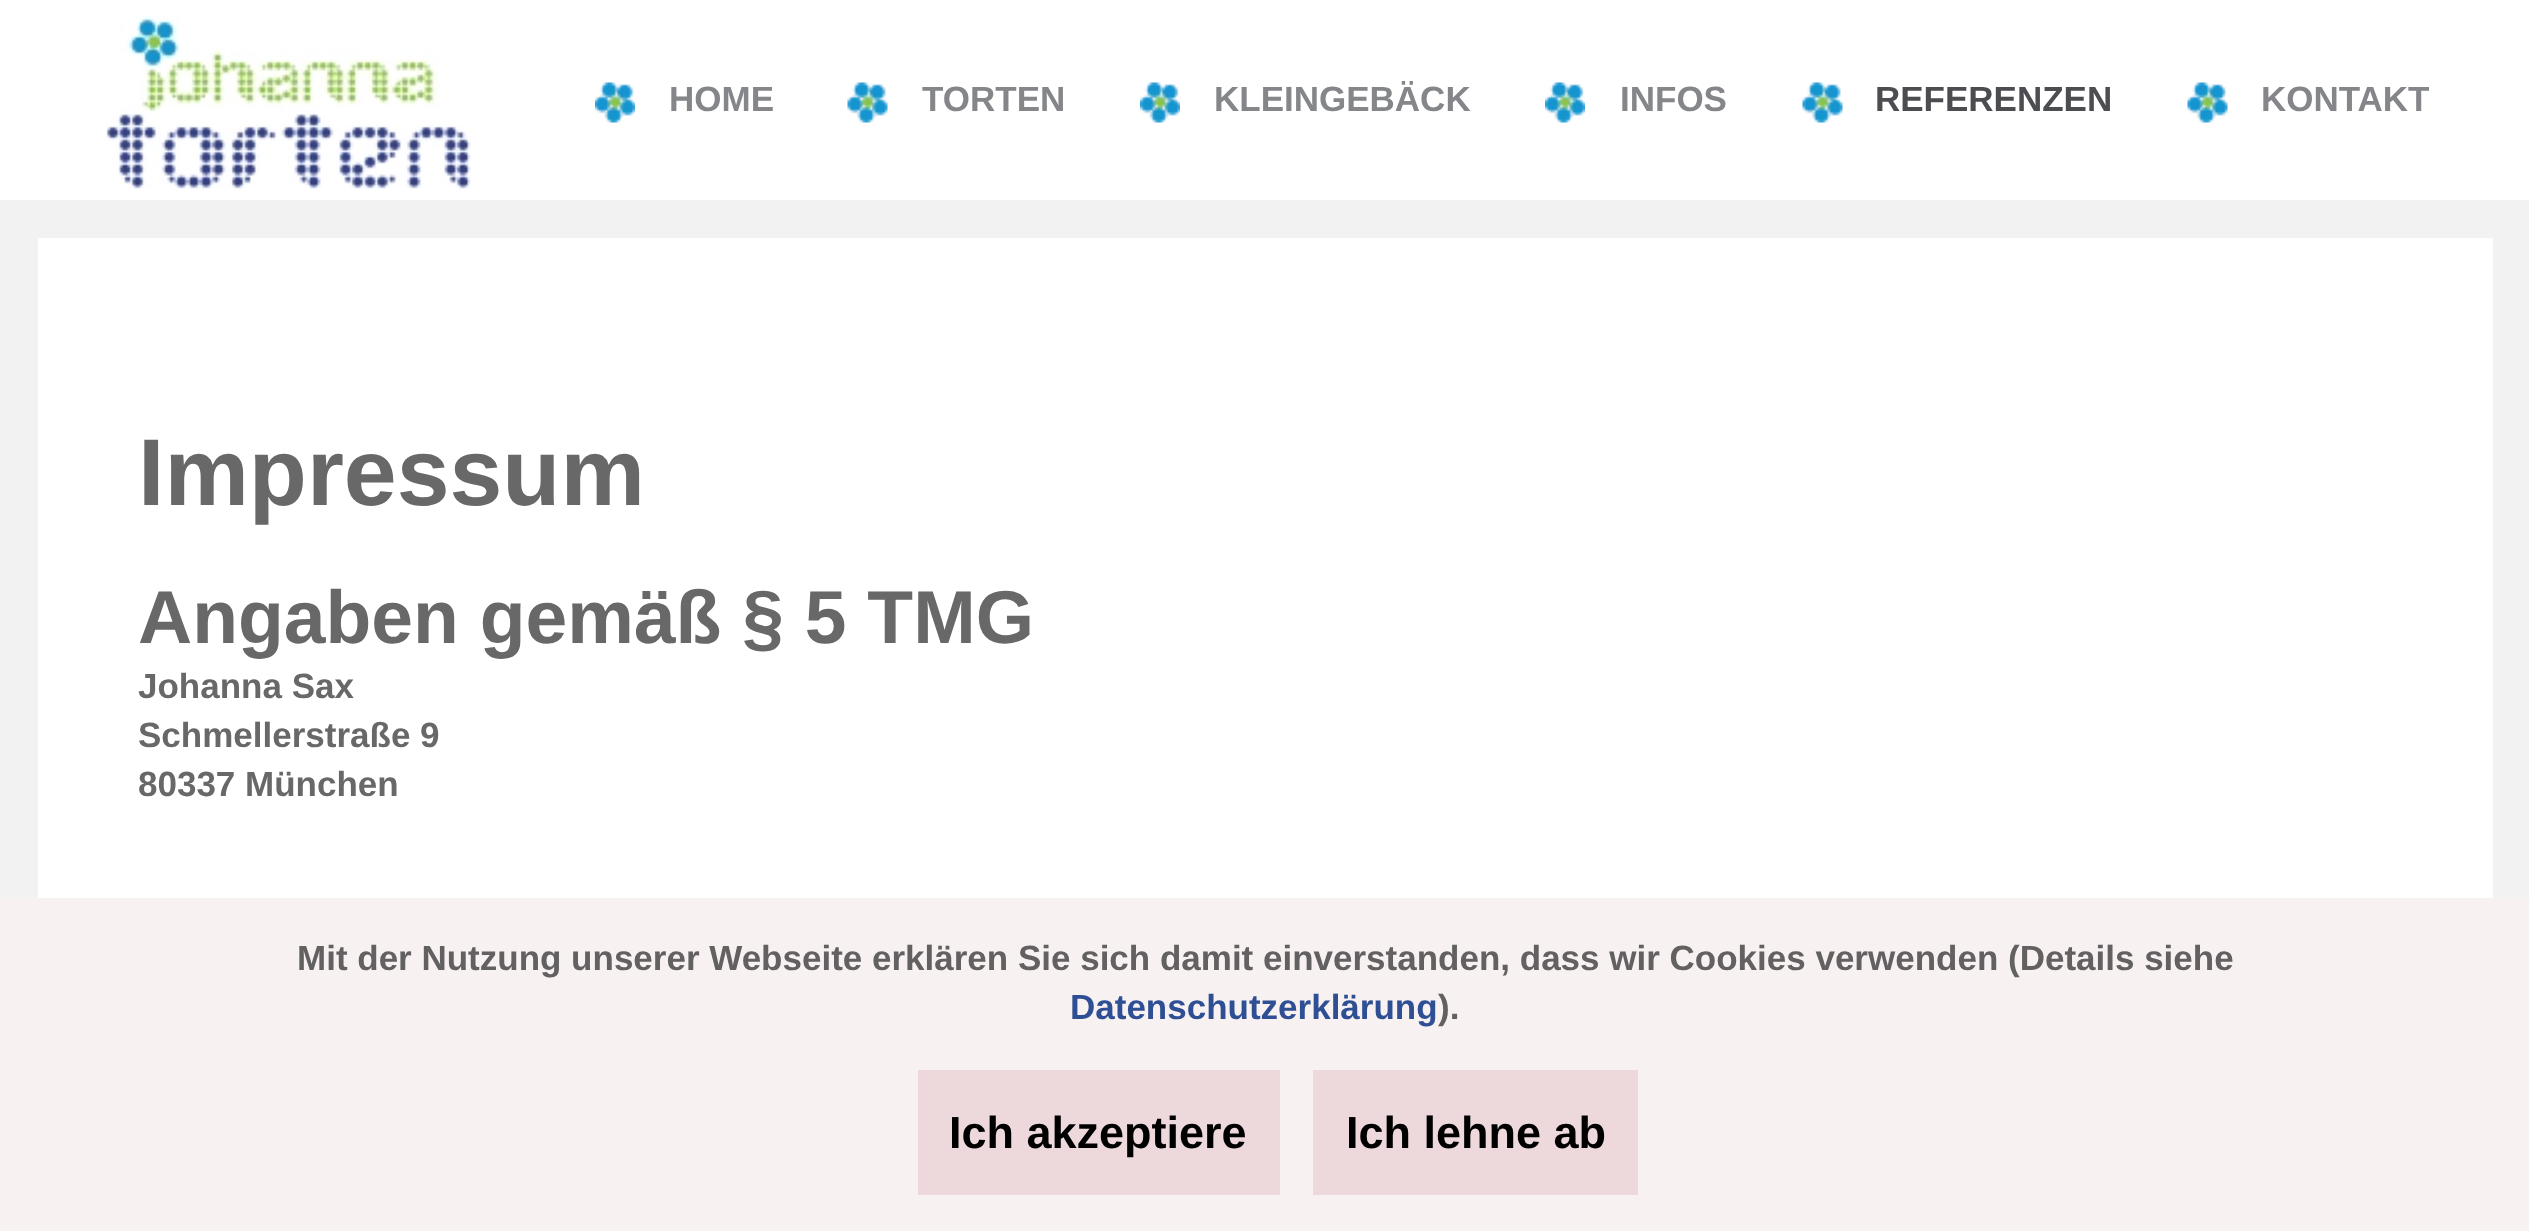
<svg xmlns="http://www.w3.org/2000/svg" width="2529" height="1231">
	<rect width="100%" height="100%" fill="#F2F2F2" />
	<rect x="0" y="0" width="2529" height="200" fill="#FFFFFF" />
	<image x="106" y="15" width="365" height="174" href="assets/img1.png" />
	<image x="595" y="82" width="40" height="41" href="assets/img2.png" />
	<text x="669" y="111" font-family="Liberation Sans" font-size="35" font-weight="700" fill="#848689">HOME</text>
	<image x="847" y="82" width="41" height="41" href="assets/img3.png" />
	<text x="922" y="111" font-family="Liberation Sans" font-size="35" font-weight="700" fill="#848689">TORTEN</text>
	<image x="1140" y="82" width="40" height="41" href="assets/img4.png" />
	<text x="1214" y="111" font-family="Liberation Sans" font-size="35" font-weight="700" fill="#848689">KLEINGEBÄCK</text>
	<image x="1545" y="82" width="40" height="41" href="assets/img5.png" />
	<text x="1620" y="111" font-family="Liberation Sans" font-size="35" font-weight="700" fill="#848689">INFOS</text>
	<image x="1802" y="82" width="41" height="41" href="assets/img6.png" />
	<text x="1875" y="111" font-family="Liberation Sans" font-size="35" font-weight="700" fill="#4C4D50">REFERENZEN</text>
	<image x="2187" y="82" width="41" height="41" href="assets/img3.png" />
	<text x="2261" y="111" font-family="Liberation Sans" font-size="35" font-weight="700" fill="#848689">KONTAKT</text>
	<rect x="38" y="238" width="2455" height="660" fill="#FFFFFF" />
	<text x="138" y="505" font-family="Liberation Sans" font-size="95" font-weight="700" fill="#686868">Impressum</text>
	<text x="138" y="643" font-family="Liberation Sans" font-size="75" font-weight="700" fill="#686868">Angaben gemäß § 5 TMG</text>
	<g font-family="Liberation Sans" font-size="35" font-weight="700" fill="#686868">
		<text x="138" y="698">Johanna Sax</text>
		<text x="138" y="747">Schmellerstraße 9</text>
		<text x="138" y="796">80337 München</text>
	</g>
	<rect x="0" y="898" width="2529" height="333" fill="#F8F1F2" />
	<text x="297" y="970" font-family="Liberation Sans" font-size="35" font-weight="700" fill="#636061">Mit der Nutzung unserer Webseite erklären Sie sich damit einverstanden, dass wir Cookies verwenden (Details siehe</text>
	<text x="1070" y="1019" font-family="Liberation Sans" font-size="35" font-weight="700" fill="#2F4F94">Datenschutzerklärung</text>
	<text x="1438" y="1019" font-family="Liberation Sans" font-size="35" font-weight="700" fill="#636061">).</text>
	<rect x="918" y="1070" width="362" height="125" fill="#EDD9DC" />
	<text x="949" y="1148" font-family="Liberation Sans" font-size="45" font-weight="700" fill="#000000">Ich akzeptiere</text>
	<rect x="1313" y="1070" width="325" height="125" fill="#EDD9DC" />
	<text x="1346" y="1148" font-family="Liberation Sans" font-size="45" font-weight="700" fill="#000000">Ich lehne ab</text>
</svg>
